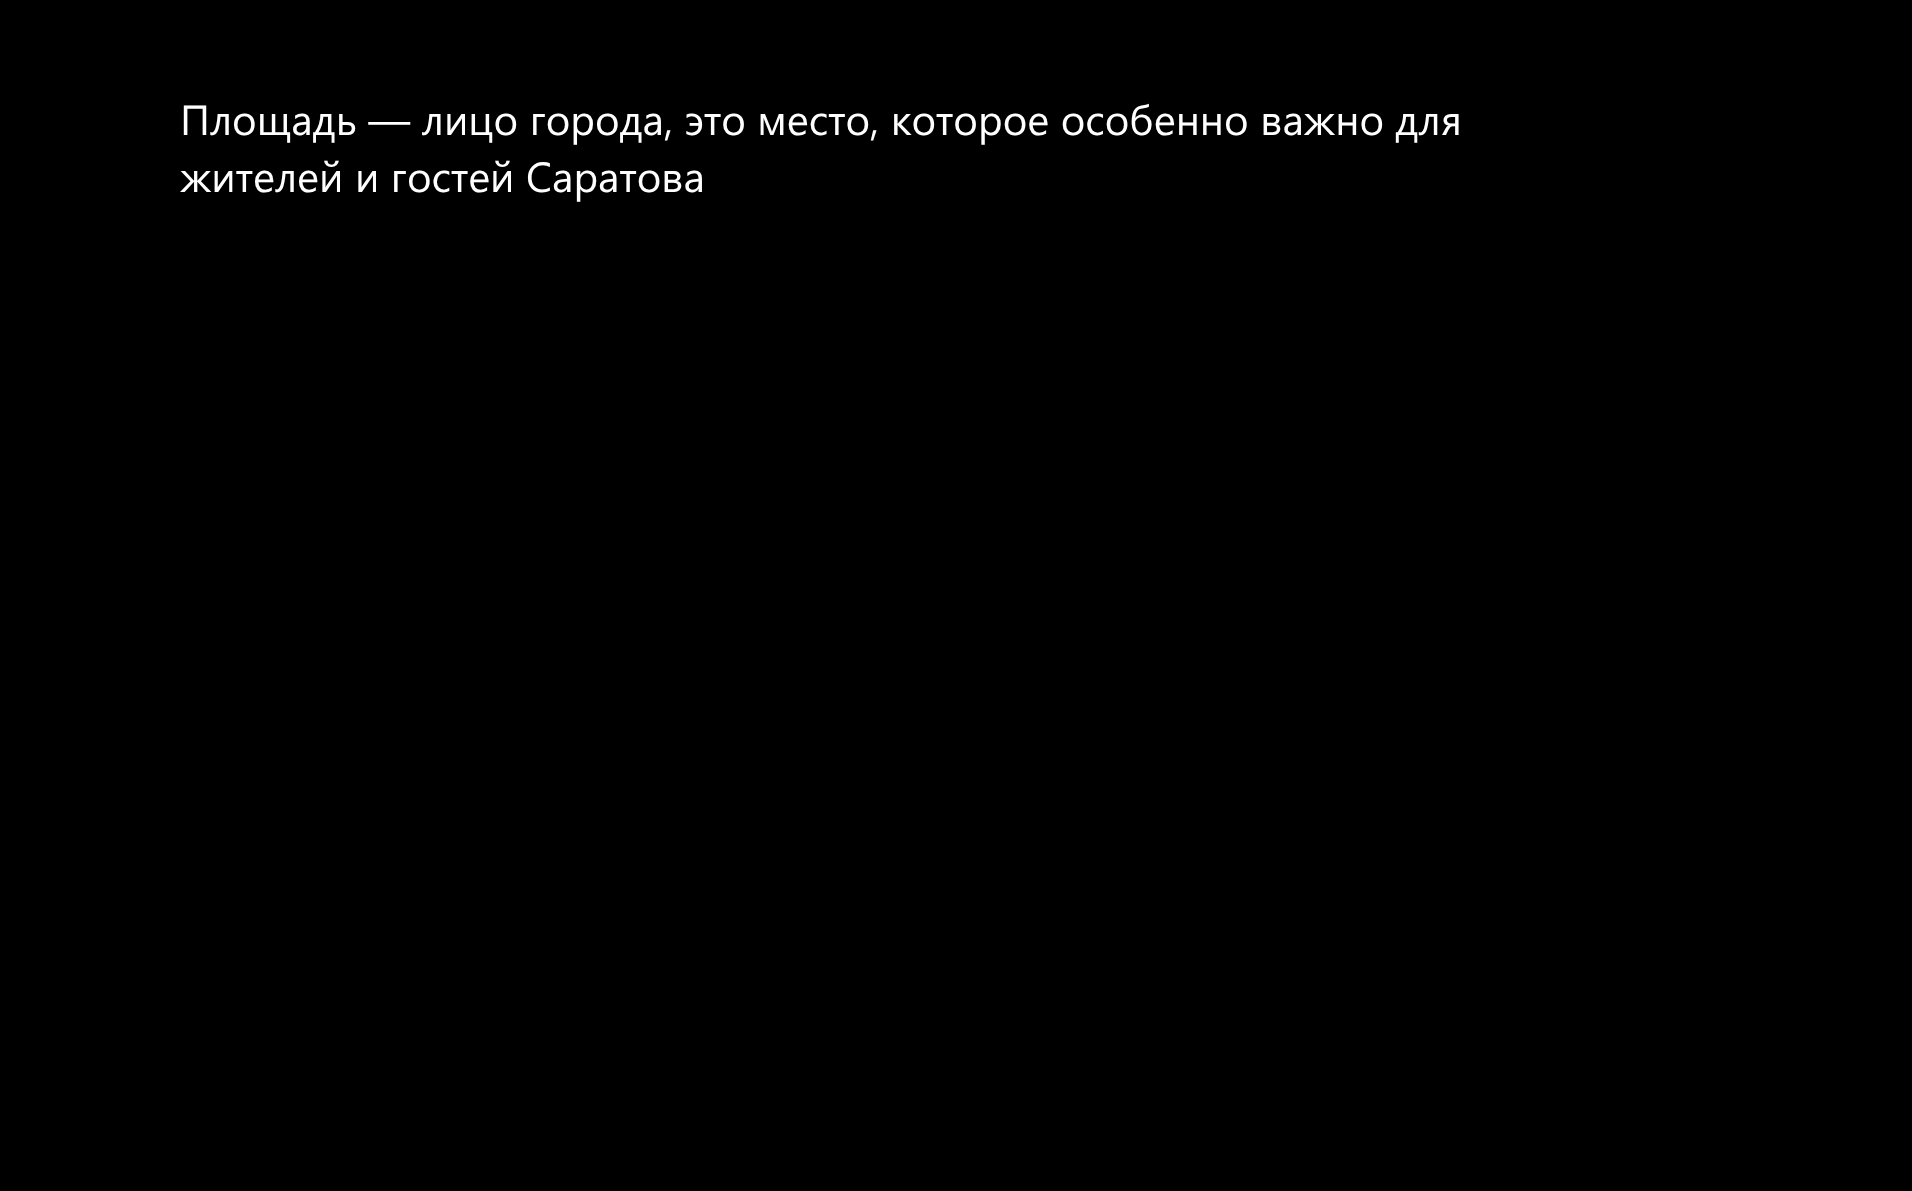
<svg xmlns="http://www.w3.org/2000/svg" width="1912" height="1191">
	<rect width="100%" height="100%" fill="#000000" />
	<g font-family="Segoe UI" font-size="42" fill="#FFFFFF">
		<text x="180" y="135">Площадь — лицо города, это место, которое особенно важно для</text>
		<text x="180" y="192">жителей и гостей Саратова</text>
	</g>
</svg>
